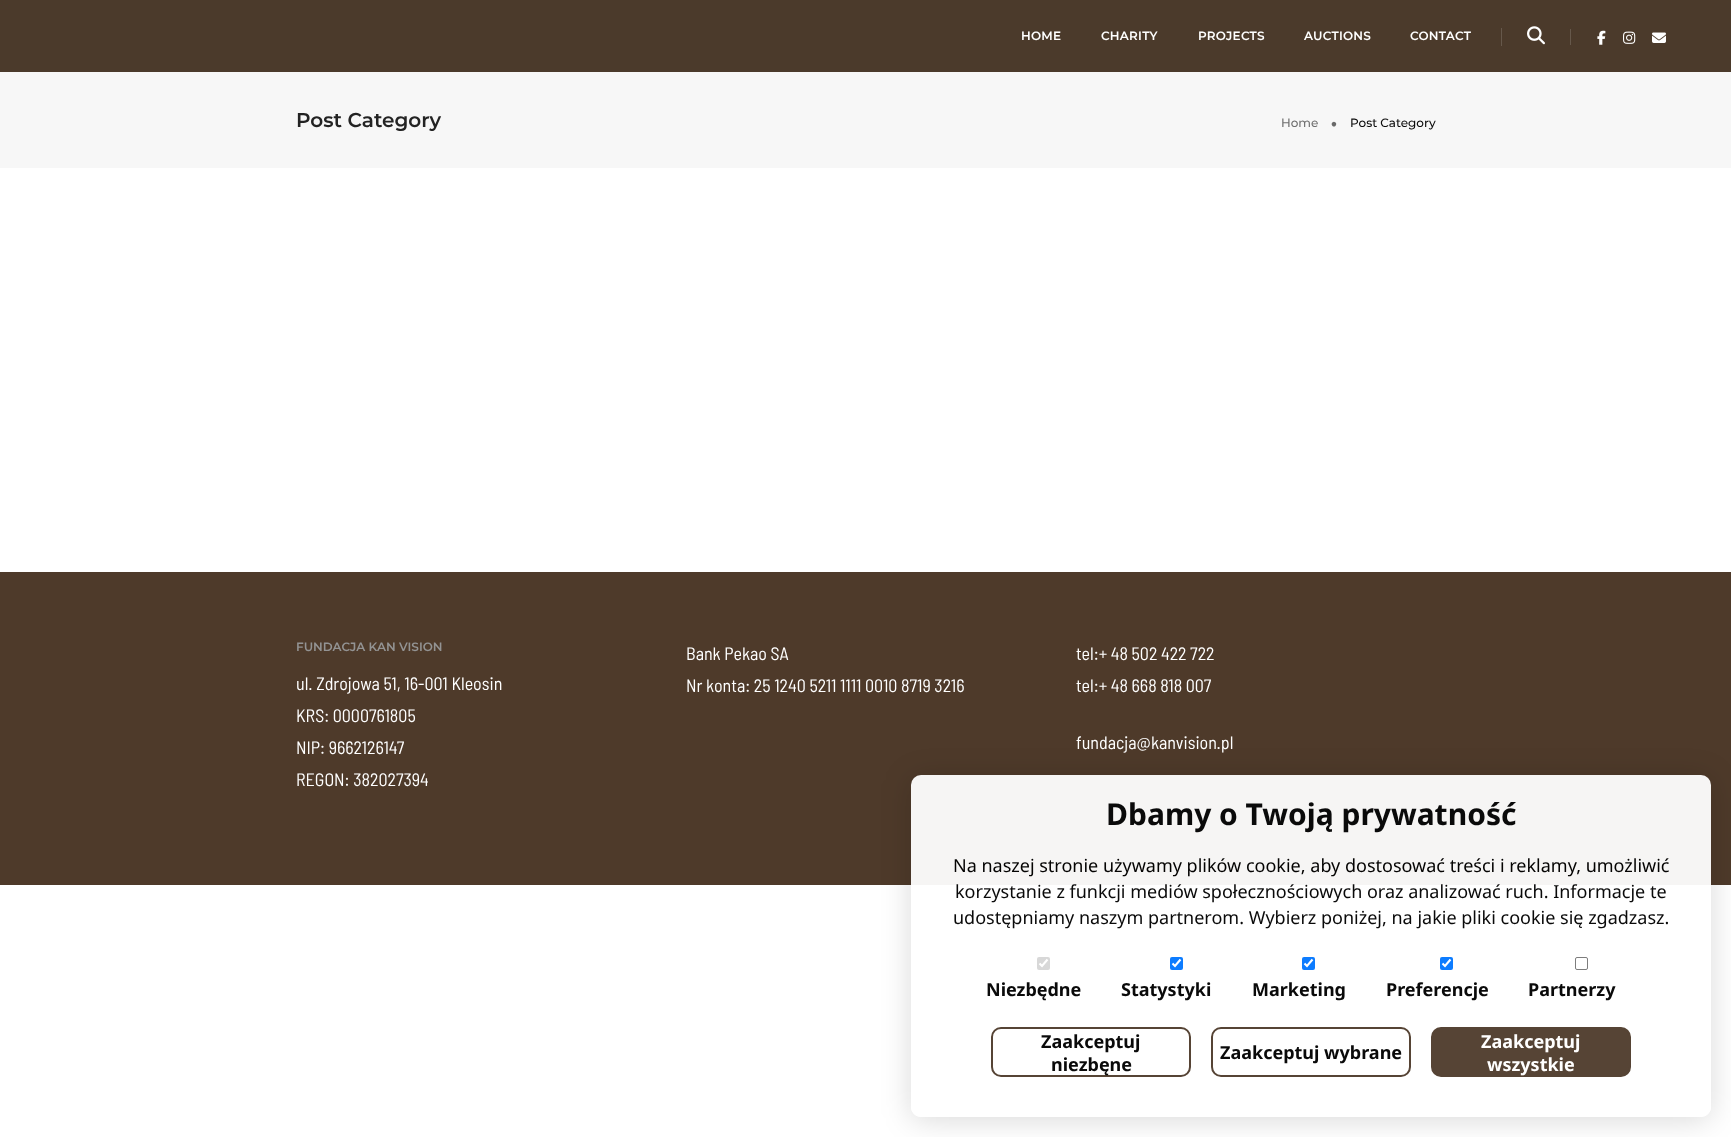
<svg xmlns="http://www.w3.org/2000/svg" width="1731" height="1137">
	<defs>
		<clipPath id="clip1"><path d="M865 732H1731V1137H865ZM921 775H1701C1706.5 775 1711 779.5 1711 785V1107C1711 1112.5 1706.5 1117 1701 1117H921C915.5 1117 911 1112.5 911 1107V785C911 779.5 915.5 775 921 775Z" clip-rule="evenodd" /></clipPath>
	</defs>
	<rect width="100%" height="100%" fill="#FFFFFF" />
	<rect x="0" y="0" width="1731" height="72" fill="#4B3A2B" />
	<g font-family="Montserrat" font-size="12" font-weight="600" letter-spacing="0.25" fill="#FFFFFF">
		<text x="1021" y="40">HOME</text>
		<text x="1101" y="40">CHARITY</text>
		<text x="1198" y="40">PROJECTS</text>
		<text x="1304" y="40">AUCTIONS</text>
		<text x="1410" y="40">CONTACT</text>
	</g>
	<rect x="1501" y="28" width="1" height="18" fill="#66584B" />
	<image x="1527" y="26" width="18" height="19" href="assets/img1.png" />
	<rect x="1570" y="29" width="1" height="16" fill="#66584B" />
	<image x="1597" y="30" width="9" height="15" href="assets/img2.png" />
	<image x="1623" y="31" width="13" height="13" href="assets/img3.png" />
	<image x="1652" y="32" width="14" height="11" href="assets/img4.png" />
	<rect x="0" y="72" width="1731" height="96" fill="#F7F7F7" />
	<text x="296" y="127" font-family="Montserrat" font-size="20" font-weight="600" fill="#232323">Post Category</text>
	<text x="1281" y="127" font-family="Montserrat" font-size="12" font-weight="500" fill="#6F6F6F">Home</text>
	<text x="1330" y="131" font-family="Montserrat" font-size="25" font-weight="500" fill="#696969">•</text>
	<text x="1350" y="127" font-family="Montserrat" font-size="12" font-weight="500" fill="#0A0A0A">Post Category</text>
	<rect x="0" y="572" width="1731" height="313" fill="#4E3A2A" />
	<text x="296" y="651" font-family="Montserrat" font-size="12" font-weight="600" fill="#939393">FUNDACJA KAN VISION</text>
	<g font-family="Barlow Semi Condensed" font-size="18" fill="#FFFFFF">
		<text x="296" y="690">ul. Zdrojowa 51, 16-001 Kleosin</text>
		<text x="296" y="722">KRS: 0000761805</text>
		<text x="296" y="754">NIP: 9662126147</text>
		<text x="296" y="786">REGON: 382027394</text>
		<text x="686" y="660">Bank Pekao SA</text>
		<text x="686" y="692">Nr konta: 25 1240 5211 1111 0010 8719 3216</text>
		<text x="1076" y="660">tel:+ 48 502 422 722</text>
		<text x="1076" y="692">tel:+ 48 668 818 007</text>
		<text x="1076" y="749">fundacja@kanvision.pl</text>
	</g>
	<g clip-path="url(#clip1)">
		<rect x="911" y="778" width="800" height="342" rx="10" fill="#000000" fill-opacity="0.15" filter="blur(15px)" />
	</g>
	<rect x="911" y="775" width="800" height="342" rx="10" fill="#FFFFFF" fill-opacity="0.95" />
	<text x="1106" y="825" font-family="Noto Sans" font-size="30" font-weight="700" fill="#0A0A0A">Dbamy o Twoją prywatność</text>
	<text x="953" y="872" font-family="Noto Sans" font-size="18" fill="#040302">Na naszej stronie używamy plików cookie, aby dostosować treści i reklamy, umożliwić</text>
	<g font-family="Noto Sans" font-size="18" fill="#0A0A0A">
		<text x="955" y="898">korzystanie z funkcji mediów społecznościowych oraz analizować ruch. Informacje te</text>
		<text x="953" y="924">udostępniamy naszym partnerom. Wybierz poniżej, na jakie pliki cookie się zgadzasz.</text>
	</g>
	<rect x="1037" y="957" width="13" height="13" rx="2" fill="#D8D8D8" />
	<path d="M1039.5 963.5L1042 966L1047.5 959.5" fill="none" stroke="#FFFFFF" stroke-width="2.1" />
	<text x="986" y="996" font-family="Noto Sans" font-size="18" font-weight="700" fill="#0A0A0A">Niezbędne</text>
	<rect x="1170" y="957" width="13" height="13" rx="2" fill="#0D7CFF" />
	<path d="M1172.5 963.5L1175 966L1180.5 959.5" fill="none" stroke="#FFFFFF" stroke-width="2.1" />
	<text x="1121" y="996" font-family="Noto Sans" font-size="18" font-weight="700" fill="#0A0A0A">Statystyki</text>
	<rect x="1302" y="957" width="13" height="13" rx="2" fill="#0D7CFF" />
	<path d="M1304.5 963.5L1307 966L1312.5 959.5" fill="none" stroke="#FFFFFF" stroke-width="2.1" />
	<text x="1252" y="996" font-family="Noto Sans" font-size="18" font-weight="700" fill="#0A0A0A">Marketing</text>
	<rect x="1440" y="957" width="13" height="13" rx="2" fill="#0D7CFF" />
	<path d="M1442.5 963.5L1445 966L1450.5 959.5" fill="none" stroke="#FFFFFF" stroke-width="2.1" />
	<text x="1386" y="996" font-family="Noto Sans" font-size="18" font-weight="700" fill="#0A0A0A">Preferencje</text>
	<rect x="1575.5" y="957.5" width="12" height="12" rx="1.5" fill="none" stroke="#7D7D7D" />
	<text x="1528" y="996" font-family="Noto Sans" font-size="18" font-weight="700" fill="#0A0A0A">Partnerzy</text>
	<rect x="992" y="1028" width="198" height="48" rx="9" fill="none" stroke="#564435" stroke-width="2" />
	<g font-family="Noto Sans" font-size="18" font-weight="700" fill="#0A0A0A">
		<text x="1041" y="1048">Zaakceptuj</text>
		<text x="1051" y="1071">niezbęne</text>
	</g>
	<rect x="1212" y="1028" width="198" height="48" rx="9" fill="none" stroke="#564435" stroke-width="2" />
	<text x="1220" y="1059" font-family="Noto Sans" font-size="18" font-weight="700" fill="#0A0A0A">Zaakceptuj wybrane</text>
	<rect x="1432" y="1028" width="198" height="48" rx="9" fill="#564435" stroke="#564435" stroke-width="2" />
	<g font-family="Noto Sans" font-size="18" font-weight="700" fill="#FFFFFF">
		<text x="1481" y="1048">Zaakceptuj</text>
		<text x="1487" y="1071">wszystkie</text>
	</g>
</svg>
